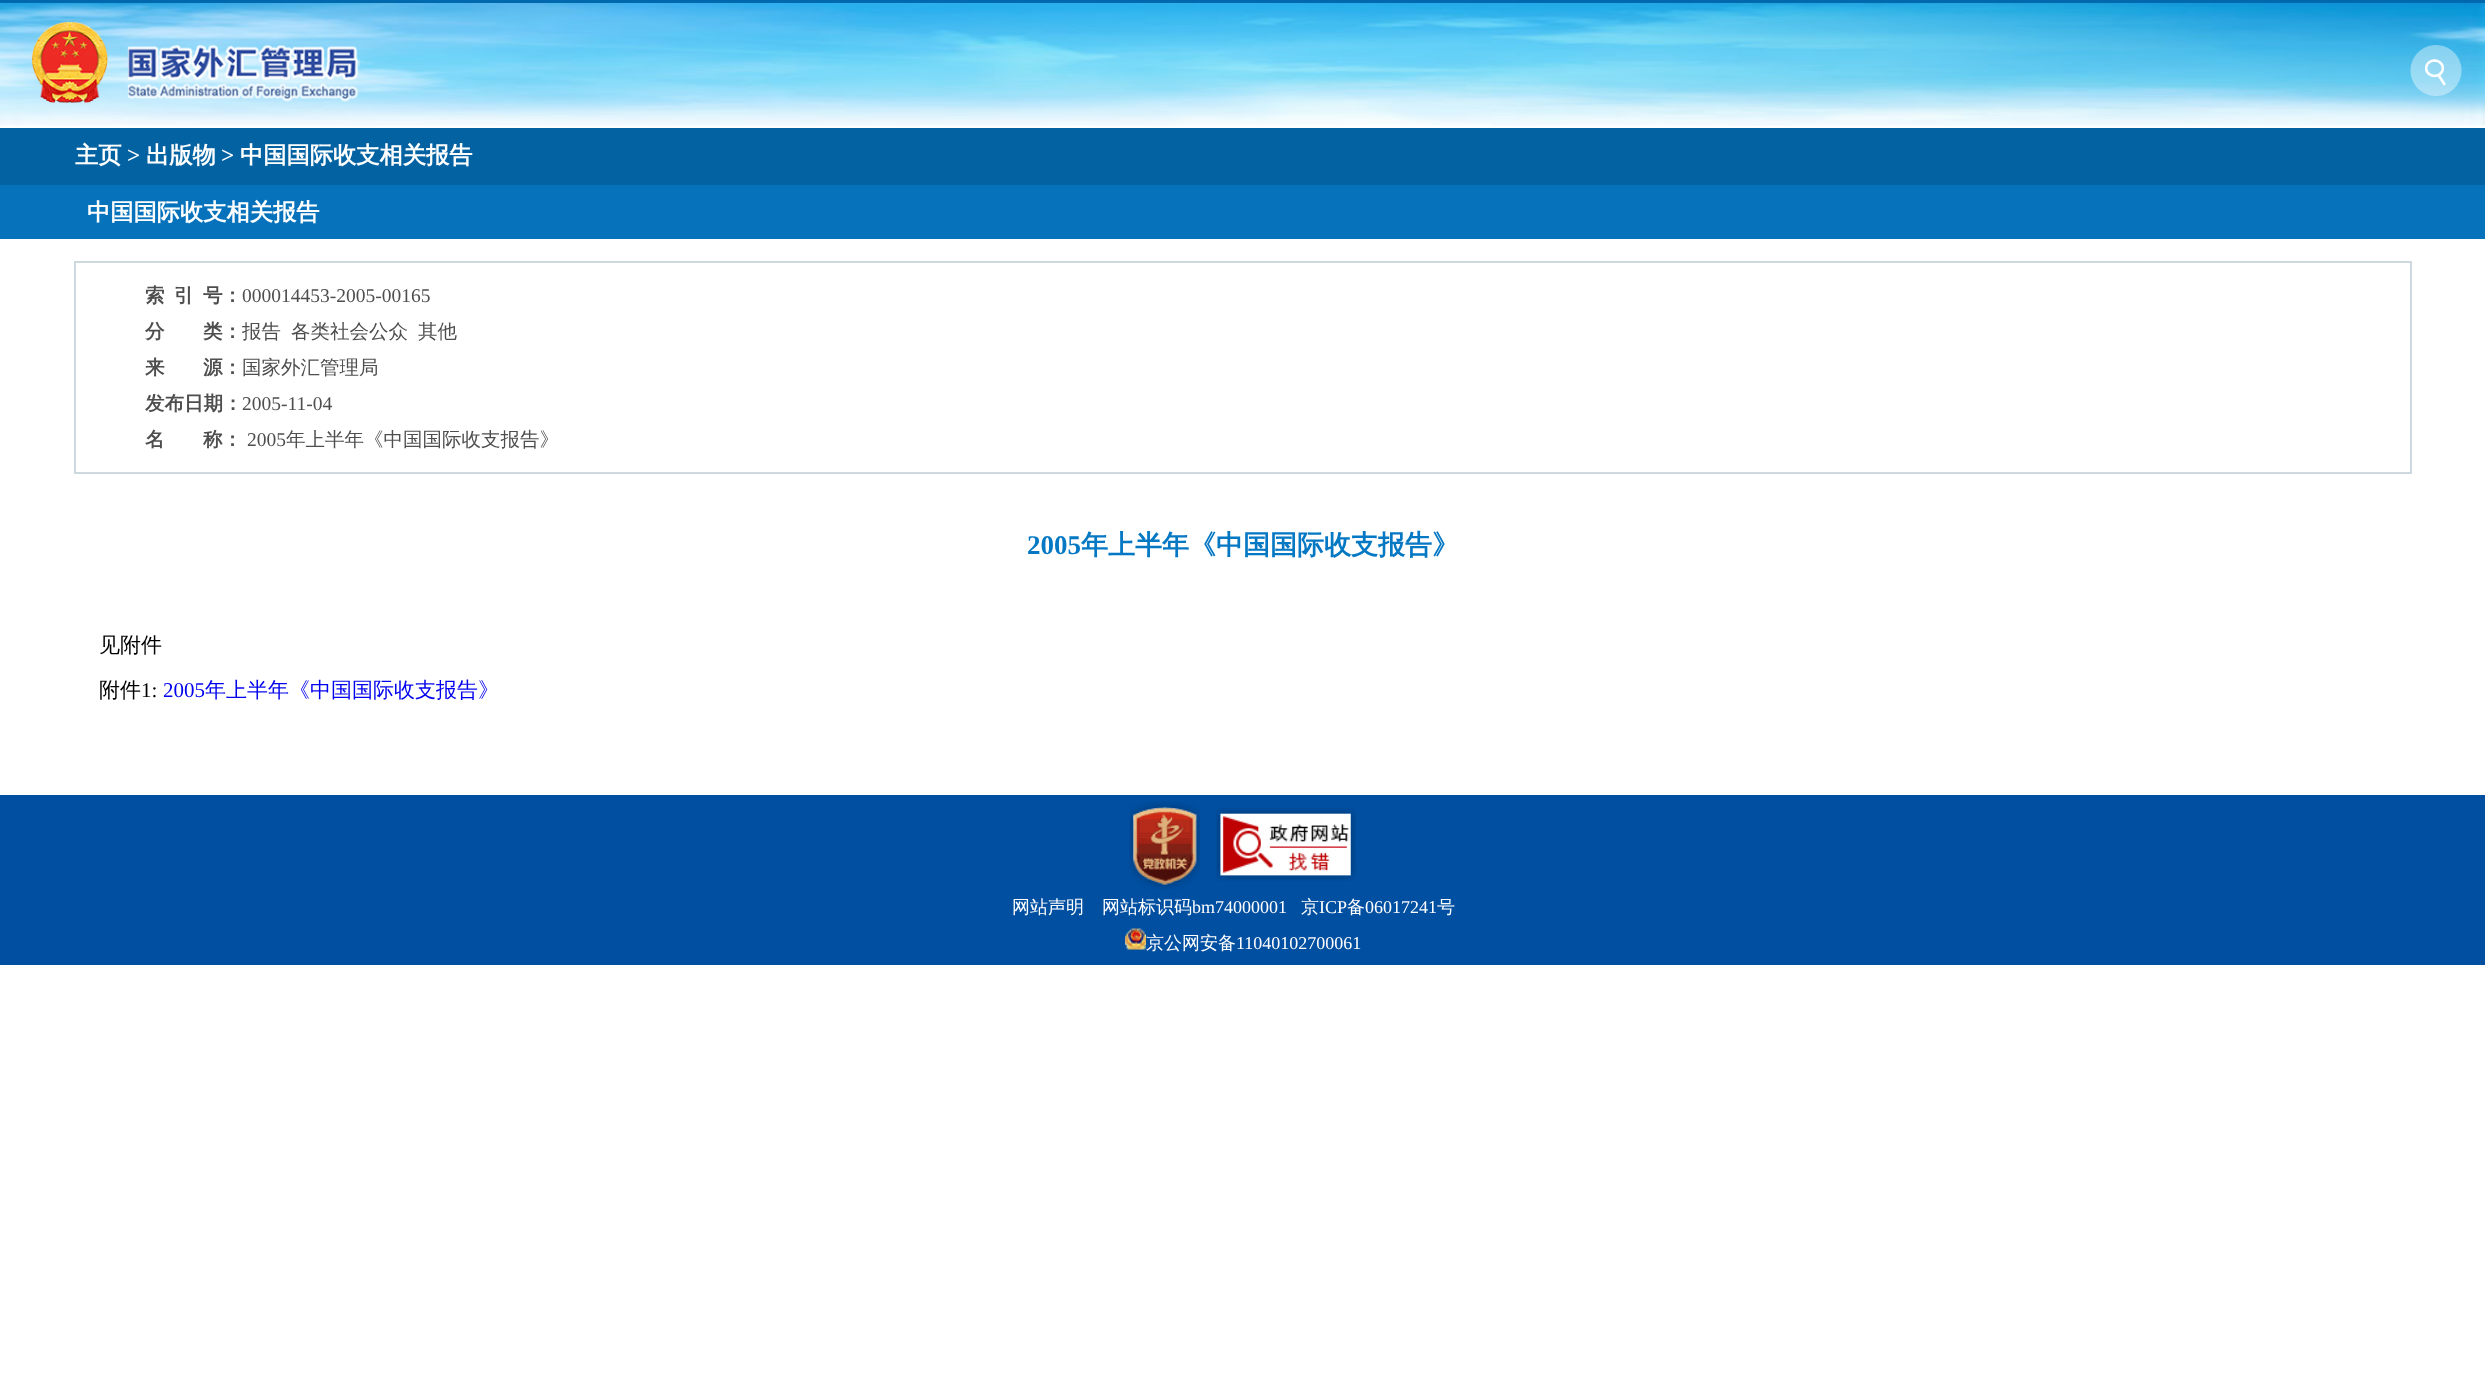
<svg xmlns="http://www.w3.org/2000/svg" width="2485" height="1374">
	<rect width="100%" height="100%" fill="#FFFFFF" />
	<rect x="0" y="0" width="2485" height="3" fill="#0069AE" />
	<image x="0" y="3" width="2485" height="123" href="assets/img1.png" />
	<image x="32" y="21" width="329" height="82" href="assets/img2.png" />
	<image x="2410" y="45" width="52" height="51" href="assets/img3.png" />
	<rect x="0" y="128" width="2485" height="57" fill="#0362A2" />
	<text x="75" y="163" font-family="WenQuanYi Zen Hei" font-size="23.25" font-weight="700" fill="#FFFFFF">主页</text>
	<text x="127" y="163" font-family="Liberation Serif" font-size="23.25" font-weight="700" fill="#FFFFFF">&gt;</text>
	<text x="146" y="163" font-family="WenQuanYi Zen Hei" font-size="23.25" font-weight="700" fill="#FFFFFF">出版物</text>
	<text x="221" y="163" font-family="Liberation Serif" font-size="23.25" font-weight="700" fill="#FFFFFF">&gt;</text>
	<text x="240" y="163" font-family="WenQuanYi Zen Hei" font-size="23.25" font-weight="700" fill="#FFFFFF">中国国际收支相关报告</text>
	<rect x="0" y="185" width="2485" height="54" fill="#0672BB" />
	<text x="87" y="220" font-family="WenQuanYi Zen Hei" font-size="23.25" font-weight="700" fill="#FFFFFF">中国国际收支相关报告</text>
	<rect x="75" y="262" width="2336" height="211" fill="none" stroke="#CED8DF" stroke-width="2" />
	<g font-family="WenQuanYi Zen Hei" font-size="19.5" font-weight="700" fill="#4E4E4E">
		<text x="145" y="302">索</text>
		<text x="174" y="302">引</text>
		<text x="203" y="302">号：</text>
	</g>
	<text x="242" y="302" font-family="Liberation Serif" font-size="19.5" fill="#4E4E4E">000014453-2005-00165</text>
	<g font-family="WenQuanYi Zen Hei" font-size="19.5" font-weight="700" fill="#4E4E4E">
		<text x="145" y="338">分</text>
		<text x="203" y="338">类：</text>
	</g>
	<g font-family="WenQuanYi Zen Hei" font-size="19.5" font-weight="500" fill="#4E4E4E">
		<text x="242" y="338">报告</text>
		<text x="291" y="338">各类社会公众</text>
		<text x="418" y="338">其他</text>
	</g>
	<g font-family="WenQuanYi Zen Hei" font-size="19.5" font-weight="700" fill="#4E4E4E">
		<text x="145" y="374">来</text>
		<text x="203" y="374">源：</text>
	</g>
	<text x="242" y="374" font-family="WenQuanYi Zen Hei" font-size="19.5" font-weight="500" fill="#4E4E4E">国家外汇管理局</text>
	<text x="145" y="410" font-family="WenQuanYi Zen Hei" font-size="19.5" font-weight="700" fill="#4E4E4E">发布日期：</text>
	<text x="242" y="410" font-family="Liberation Serif" font-size="19.5" fill="#4E4E4E">2005-11-04</text>
	<g font-family="WenQuanYi Zen Hei" font-size="19.5" font-weight="700" fill="#4E4E4E">
		<text x="145" y="446">名</text>
		<text x="203" y="446">称：</text>
	</g>
	<text x="247" y="446" font-family="Liberation Serif" font-size="19.5" fill="#4E4E4E">2005</text>
	<text x="286" y="446" font-family="WenQuanYi Zen Hei" font-size="19.5" font-weight="500" fill="#4E4E4E">年上半年《中国国际收支报告》</text>
	<text x="1027" y="554" font-family="Liberation Serif" font-size="27" font-weight="700" fill="#0578C4">2005</text>
	<text x="1081" y="554" font-family="WenQuanYi Zen Hei" font-size="27" font-weight="700" fill="#0578C4">年上半年《中国国际收支报告》</text>
	<g font-family="WenQuanYi Zen Hei" font-size="21" font-weight="500" fill="#000000">
		<text x="99" y="652">见附件</text>
		<text x="99" y="697">附件</text>
	</g>
	<text x="141" y="697" font-family="Liberation Serif" font-size="21" fill="#000000">1:</text>
	<text x="163" y="697" font-family="Liberation Serif" font-size="21" fill="#0000EE">2005</text>
	<text x="205" y="697" font-family="WenQuanYi Zen Hei" font-size="21" font-weight="500" fill="#0000EE">年上半年《中国国际收支报告》</text>
	<rect x="0" y="795" width="2485" height="170" fill="#004FA1" />
	<image x="1129" y="801" width="71" height="89" href="assets/img4.png" />
	<image x="1216" y="808" width="140" height="73" href="assets/img5.png" />
	<g font-family="WenQuanYi Zen Hei" font-size="18" font-weight="500" fill="#FFFFFF">
		<text x="1012" y="913">网站声明</text>
		<text x="1102" y="913">网站标识码</text>
	</g>
	<text x="1192" y="913" font-family="Liberation Serif" font-size="18" fill="#FFFFFF">bm74000001</text>
	<text x="1301" y="913" font-family="WenQuanYi Zen Hei" font-size="18" font-weight="500" fill="#FFFFFF">京</text>
	<text x="1319" y="913" font-family="Liberation Serif" font-size="18" fill="#FFFFFF">ICP</text>
	<text x="1347" y="913" font-family="WenQuanYi Zen Hei" font-size="18" font-weight="500" fill="#FFFFFF">备</text>
	<text x="1365" y="913" font-family="Liberation Serif" font-size="18" fill="#FFFFFF">06017241</text>
	<text x="1437" y="913" font-family="WenQuanYi Zen Hei" font-size="18" font-weight="500" fill="#FFFFFF">号</text>
	<image x="1125" y="928" width="21" height="22" href="assets/img6.png" />
	<text x="1146" y="949" font-family="WenQuanYi Zen Hei" font-size="18" font-weight="500" fill="#FFFFFF">京公网安备</text>
	<text x="1236" y="949" font-family="Liberation Serif" font-size="18" fill="#FFFFFF">11040102700061</text>
</svg>
